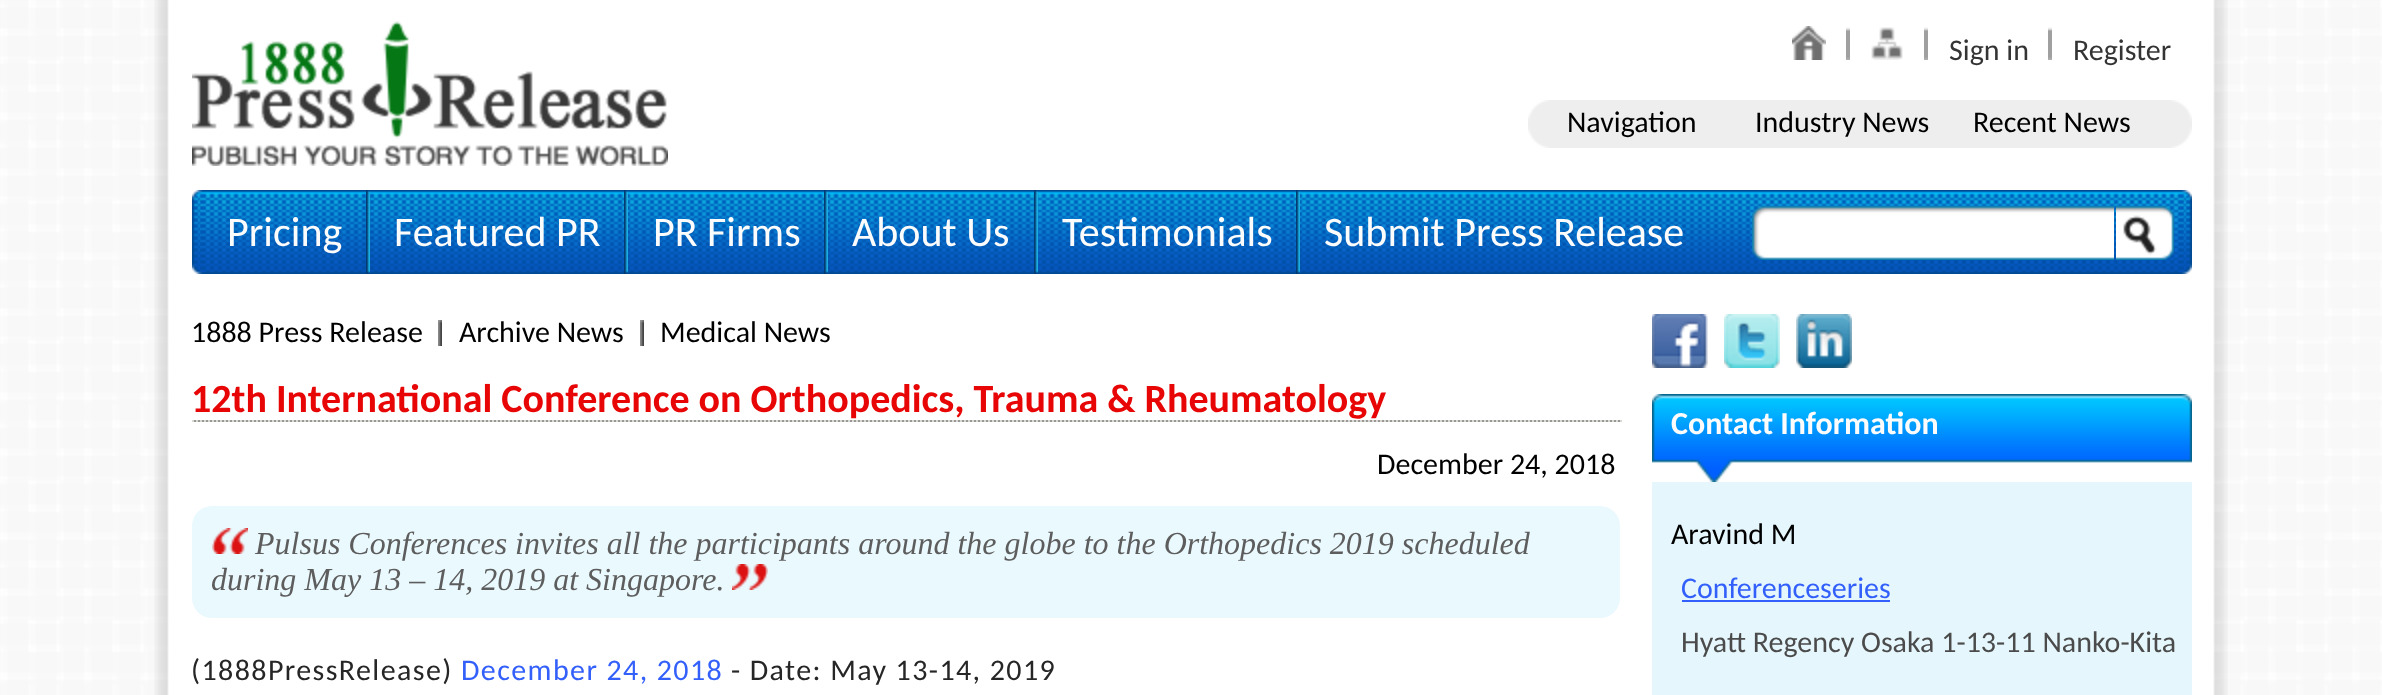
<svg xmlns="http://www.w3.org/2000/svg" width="2382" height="695">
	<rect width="100%" height="100%" fill="#FFFFFF" />
	<image x="0" y="0" width="2382" height="695" href="assets/img1.png" />
	<image x="154" y="0" width="2074" height="190" href="assets/img2.png" />
	<image x="192" y="21" width="476" height="145" href="assets/img3.png" />
	<image x="1792" y="26" width="34" height="34" href="assets/img4.png" />
	<image x="1846" y="27" width="4" height="33" href="assets/img5.png" />
	<image x="1871" y="27" width="32" height="33" href="assets/img6.png" />
	<image x="1924" y="27" width="4" height="33" href="assets/img5.png" />
	<text x="1949" y="60" font-family="Carlito" font-size="30" fill="#343434">Sign in</text>
	<image x="2048" y="27" width="4" height="33" href="assets/img5.png" />
	<text x="2073" y="60" font-family="Carlito" font-size="30" fill="#343434">Register</text>
	<image x="1528" y="100" width="664" height="48" href="assets/img7.png" />
	<g font-family="Carlito" font-size="30" fill="#000000">
		<text x="1567" y="132">Navigation</text>
		<text x="1755" y="132">Industry News</text>
		<text x="1973" y="132">Recent News</text>
	</g>
	<image x="154" y="190" width="2074" height="104" href="assets/img8.png" />
	<image x="203" y="190" width="1978" height="84" href="assets/img9.png" />
	<image x="192" y="190" width="11" height="84" href="assets/img10.png" />
	<text x="227" y="246" font-family="Carlito" font-size="42" fill="#FCFCFC">Pricing</text>
	<image x="366" y="190" width="4" height="84" href="assets/img11.png" />
	<text x="394" y="246" font-family="Carlito" font-size="42" fill="#FCFCFC">Featured PR</text>
	<image x="624" y="190" width="4" height="84" href="assets/img12.png" />
	<text x="653" y="246" font-family="Carlito" font-size="42" fill="#FCFCFC">PR Firms</text>
	<image x="824" y="190" width="4" height="84" href="assets/img12.png" />
	<text x="852" y="246" font-family="Carlito" font-size="42" fill="#FCFCFC">About Us</text>
	<image x="1034" y="190" width="4" height="84" href="assets/img13.png" />
	<text x="1062" y="246" font-family="Carlito" font-size="42" fill="#FCFCFC">Testimonials</text>
	<image x="1296" y="190" width="4" height="84" href="assets/img12.png" />
	<text x="1324" y="246" font-family="Carlito" font-size="42" fill="#FCFCFC">Submit Press Release</text>
	<image x="1752" y="206" width="362" height="54" href="assets/img14.png" />
	<image x="2116" y="206" width="58" height="54" href="assets/img15.png" />
	<image x="2181" y="190" width="11" height="84" href="assets/img16.png" />
	<image x="154" y="294" width="2074" height="20" href="assets/img17.png" />
	<image x="154" y="314" width="2074" height="381" href="assets/img18.png" />
	<text x="191" y="342" font-family="Carlito" font-size="30" fill="#000000">1888 Press Release</text>
	<image x="438" y="320" width="4" height="26" href="assets/img19.png" />
	<text x="459" y="342" font-family="Carlito" font-size="30" fill="#000000">Archive News</text>
	<image x="640" y="320" width="4" height="26" href="assets/img19.png" />
	<text x="660" y="342" font-family="Carlito" font-size="30" fill="#000000">Medical News</text>
	<image x="192" y="420" width="1430" height="2" href="assets/img20.png" />
	<text x="191" y="412" font-family="Carlito" font-size="40" font-weight="700" fill="#E70505">12th International Conference on Orthopedics, Trauma &amp; Rheumatology</text>
	<text x="1377" y="474" font-family="Carlito" font-size="30" fill="#000000">December 24, 2018</text>
	<rect x="192" y="506" width="1428" height="112" rx="20" fill="#EAF9FE" />
	<image x="212" y="528" width="36" height="26" href="assets/img21.png" />
	<g font-family="Liberation Serif" font-size="32" font-style="italic" fill="#5D5D5D">
		<text x="255" y="554">Pulsus Conferences invites all the participants around the globe to the Orthopedics 2019 scheduled</text>
		<text x="211" y="590">during May 13 – 14, 2019 at Singapore.</text>
	</g>
	<image x="732" y="564" width="36" height="26" href="assets/img22.png" />
	<text x="191" y="680" font-family="Carlito" font-size="30" letter-spacing="1.4" fill="#272626">(1888PressRelease)</text>
	<text x="461" y="680" font-family="Carlito" font-size="30" letter-spacing="1.4" fill="#3360FB">December 24, 2018</text>
	<text x="731" y="680" font-family="Carlito" font-size="30" letter-spacing="1.4" fill="#272626">- Date: May 13-14, 2019</text>
	<image x="1652" y="314" width="56" height="54" href="assets/img23.png" />
	<image x="1724" y="314" width="56" height="54" href="assets/img24.png" />
	<image x="1796" y="314" width="56" height="54" href="assets/img25.png" />
	<image x="1652" y="394" width="540" height="88" href="assets/img26.png" />
	<text x="1671" y="434" font-family="Carlito" font-size="32" font-weight="700" fill="#FCFCFC">Contact Information</text>
	<rect x="1652" y="482" width="540" height="213" fill="#E5F7FD" />
	<text x="1671" y="544" font-family="Carlito" font-size="30" fill="#000000">Aravind M</text>
	<text x="1681" y="598" font-family="Carlito" font-size="30" fill="#3360FB">Conferenceseries</text>
	<rect x="1682" y="600" width="208" height="2" fill="#3360FB" />
	<text x="1681" y="652" font-family="Carlito" font-size="30" fill="#4B4B4B">Hyatt Regency Osaka 1-13-11 Nanko-Kita</text>
</svg>
